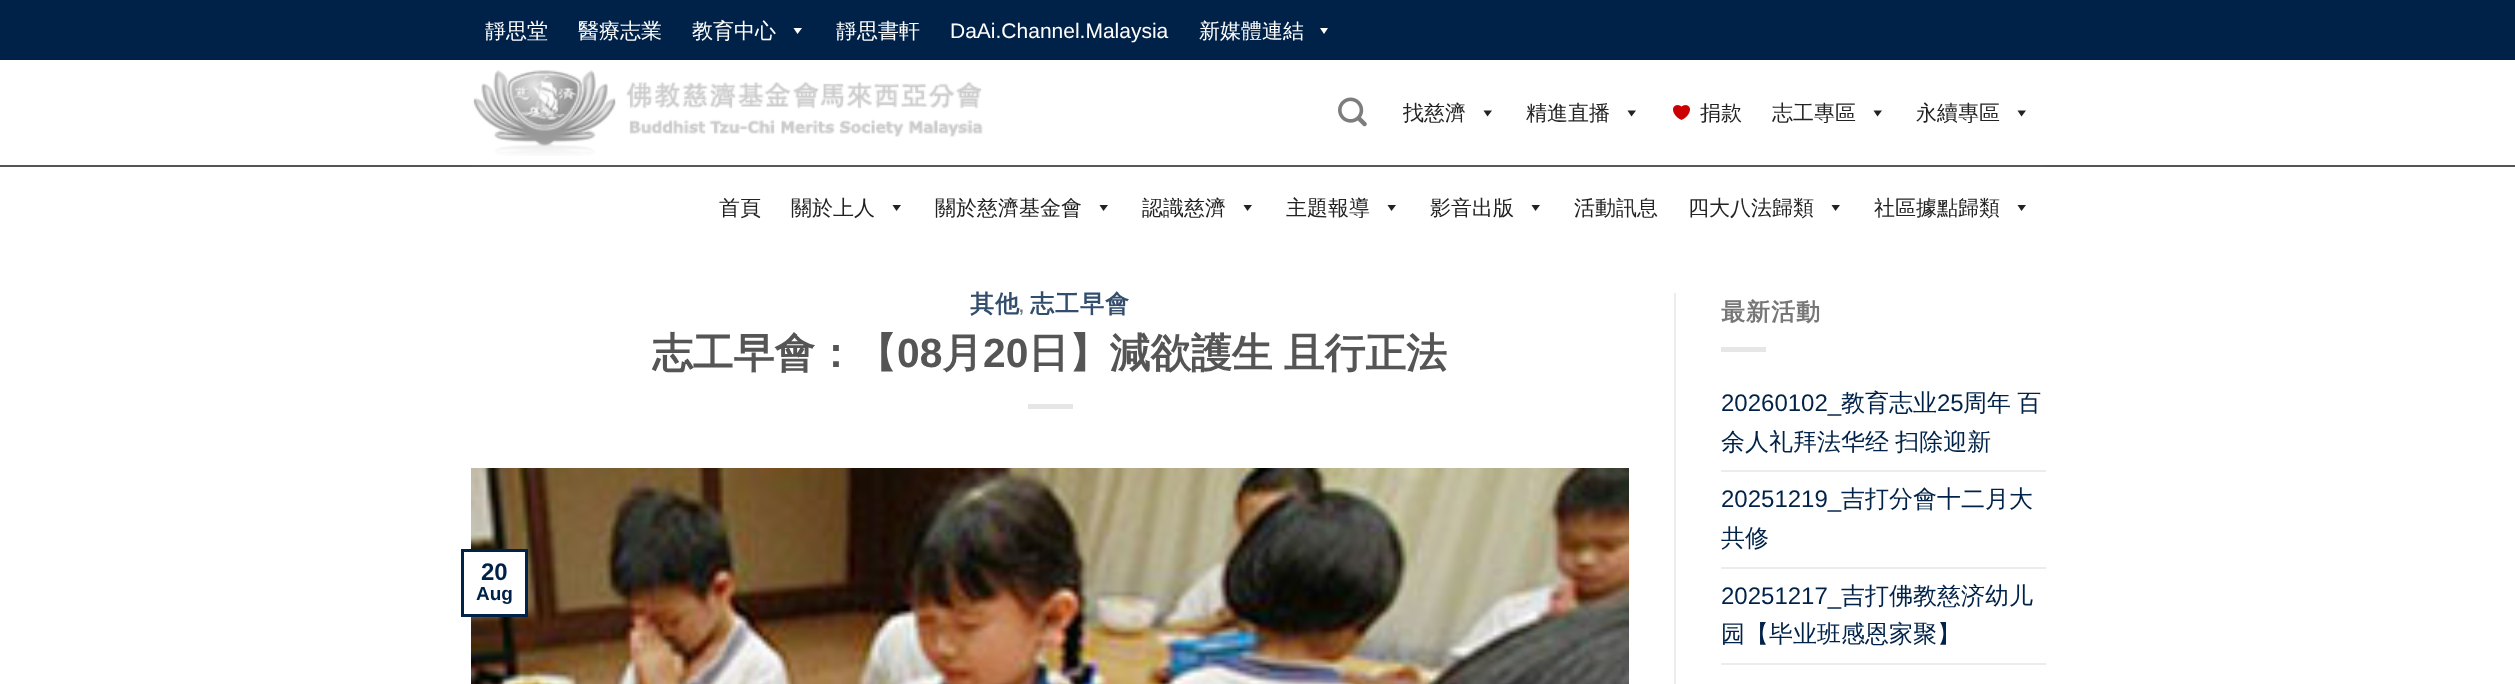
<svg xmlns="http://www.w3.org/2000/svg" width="2515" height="684">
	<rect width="100%" height="100%" fill="#FFFFFF" />
	<rect x="0" y="0" width="2515" height="60" fill="#002248" />
	<g font-family="WenQuanYi Zen Hei" font-size="21" font-weight="500" fill="#FFFFFF">
		<text x="485" y="38">靜思堂</text>
		<text x="578" y="38">醫療志業</text>
		<text x="692" y="38">教育中心</text>
	</g>
	<path d="M802 28L797.5 34L793.5 28Z" fill="#FFFFFF" />
	<text x="836" y="38" font-family="WenQuanYi Zen Hei" font-size="21" font-weight="500" fill="#FFFFFF">靜思書軒</text>
	<text x="950" y="38" font-family="Liberation Sans" font-size="21" fill="#FFFFFF">DaAi.Channel.Malaysia</text>
	<text x="1199" y="38" font-family="WenQuanYi Zen Hei" font-size="21" font-weight="500" fill="#FFFFFF">新媒體連結</text>
	<path d="M1328 28L1324 34L1320 28Z" fill="#FFFFFF" />
	<image x="473" y="70" width="510" height="86" href="assets/img1.png" />
	<image x="1338" y="97" width="29" height="30" href="assets/img2.png" />
	<text x="1403" y="120" font-family="WenQuanYi Zen Hei" font-size="21" font-weight="500" fill="#222222">找慈濟</text>
	<path d="M1492 110.5L1487.5 116.5L1483.5 110.5Z" fill="#222222" />
	<text x="1526" y="120" font-family="WenQuanYi Zen Hei" font-size="21" font-weight="500" fill="#222222">精進直播</text>
	<path d="M1636 110.5L1631.5 116.5L1627.5 110.5Z" fill="#222222" />
	<image x="1673" y="105" width="17" height="15" href="assets/img3.png" />
	<g font-family="WenQuanYi Zen Hei" font-size="21" font-weight="500" fill="#222222">
		<text x="1700" y="120">捐款</text>
		<text x="1772" y="120">志工專區</text>
	</g>
	<path d="M1882 110.5L1877.5 116.5L1873.5 110.5Z" fill="#222222" />
	<text x="1916" y="120" font-family="WenQuanYi Zen Hei" font-size="21" font-weight="500" fill="#222222">永續專區</text>
	<path d="M2026 110.5L2021.5 116.5L2017.5 110.5Z" fill="#222222" />
	<rect x="0" y="165" width="2515" height="2" fill="#555555" />
	<rect x="471" y="165" width="1575" height="2" fill="#585858" />
	<g font-family="WenQuanYi Zen Hei" font-size="21" font-weight="500" fill="#222222">
		<text x="719" y="215">首頁</text>
		<text x="791" y="215">關於上人</text>
	</g>
	<path d="M901 205L896.5 211L892.5 205Z" fill="#222222" />
	<text x="935" y="215" font-family="WenQuanYi Zen Hei" font-size="21" font-weight="500" fill="#222222">關於慈濟基金會</text>
	<path d="M1108 205L1103.5 211L1099.5 205Z" fill="#222222" />
	<text x="1142" y="215" font-family="WenQuanYi Zen Hei" font-size="21" font-weight="500" fill="#222222">認識慈濟</text>
	<path d="M1252 205L1247.5 211L1243.5 205Z" fill="#222222" />
	<text x="1286" y="215" font-family="WenQuanYi Zen Hei" font-size="21" font-weight="500" fill="#222222">主題報導</text>
	<path d="M1396 205L1391.5 211L1387.5 205Z" fill="#222222" />
	<text x="1430" y="215" font-family="WenQuanYi Zen Hei" font-size="21" font-weight="500" fill="#222222">影音出版</text>
	<path d="M1540 205L1535.5 211L1531.5 205Z" fill="#222222" />
	<g font-family="WenQuanYi Zen Hei" font-size="21" font-weight="500" fill="#222222">
		<text x="1574" y="215">活動訊息</text>
		<text x="1688" y="215">四大八法歸類</text>
	</g>
	<path d="M1840 205L1835.5 211L1831.5 205Z" fill="#222222" />
	<text x="1874" y="215" font-family="WenQuanYi Zen Hei" font-size="21" font-weight="500" fill="#222222">社區據點歸類</text>
	<path d="M2026 205L2021.5 211L2017.5 205Z" fill="#222222" />
	<text x="970" y="312" font-family="WenQuanYi Zen Hei" font-size="24" font-weight="700" letter-spacing="1" fill="#334E6D">其他</text>
	<text x="1019" y="312" font-family="Liberation Sans" font-size="17" font-weight="700" letter-spacing="1" fill="#777777">,</text>
	<text x="1030" y="312" font-family="WenQuanYi Zen Hei" font-size="24" font-weight="700" letter-spacing="1" fill="#334E6D">志工早會</text>
	<text x="652" y="367" font-family="WenQuanYi Zen Hei" font-size="40.75" font-weight="700" fill="#555555">志工早會：【</text>
	<text x="897" y="367" font-family="Liberation Sans" font-size="40.75" font-weight="700" fill="#555555">08</text>
	<text x="942" y="367" font-family="WenQuanYi Zen Hei" font-size="40.75" font-weight="700" fill="#555555">月</text>
	<text x="983" y="367" font-family="Liberation Sans" font-size="40.75" font-weight="700" fill="#555555">20</text>
	<text x="1028" y="367" word-spacing="-1" font-family="WenQuanYi Zen Hei" font-size="40.75" font-weight="700" fill="#555555">日】減欲護生 且行正法</text>
	<rect x="1028" y="404" width="45" height="5" fill="#E6E6E6" />
	<image x="471" y="468" width="1158" height="216" href="assets/img4.png" />
	<rect x="471" y="552" width="54" height="62" fill="#FFFFFF" />
	<rect x="462.5" y="550.5" width="64" height="65" fill="none" stroke="#002248" stroke-width="3" />
	<text x="481" y="580" font-family="Liberation Sans" font-size="24" font-weight="700" fill="#002248">20</text>
	<text x="476" y="600" font-family="Liberation Sans" font-size="19" font-weight="700" fill="#002248">Aug</text>
	<rect x="1674" y="293" width="2" height="391" fill="#ECECEC" />
	<text x="1721" y="320" font-family="WenQuanYi Zen Hei" font-size="24" font-weight="700" letter-spacing="1" fill="#777777">最新活動</text>
	<rect x="1721" y="347" width="45" height="5" fill="#E6E6E6" />
	<text x="1721" y="411" font-family="Liberation Sans" font-size="24" fill="#002248">20260102_</text>
	<text x="1841" y="411" font-family="WenQuanYi Zen Hei" font-size="24" font-weight="500" fill="#002248">教育志业</text>
	<text x="1937" y="411" font-family="Liberation Sans" font-size="24" fill="#002248">25</text>
	<g font-family="WenQuanYi Zen Hei" font-size="24" font-weight="500" fill="#002248">
		<text x="1963" y="411" word-spacing="-1">周年 百</text>
		<text x="1721" y="450" word-spacing="-1">余人礼拜法华经 扫除迎新</text>
	</g>
	<rect x="1721" y="470" width="325" height="2" fill="#ECECEC" />
	<text x="1721" y="507" font-family="Liberation Sans" font-size="24" fill="#002248">20251219_</text>
	<g font-family="WenQuanYi Zen Hei" font-size="24" font-weight="500" fill="#002248">
		<text x="1841" y="507">吉打分會十二月大</text>
		<text x="1721" y="546">共修</text>
	</g>
	<rect x="1721" y="567" width="325" height="2" fill="#ECECEC" />
	<text x="1721" y="604" font-family="Liberation Sans" font-size="24" fill="#002248">20251217_</text>
	<g font-family="WenQuanYi Zen Hei" font-size="24" font-weight="500" fill="#002248">
		<text x="1841" y="604">吉打佛教慈济幼儿</text>
		<text x="1721" y="642">园【毕业班感恩家聚】</text>
	</g>
	<rect x="1721" y="663" width="325" height="2" fill="#ECECEC" />
</svg>
